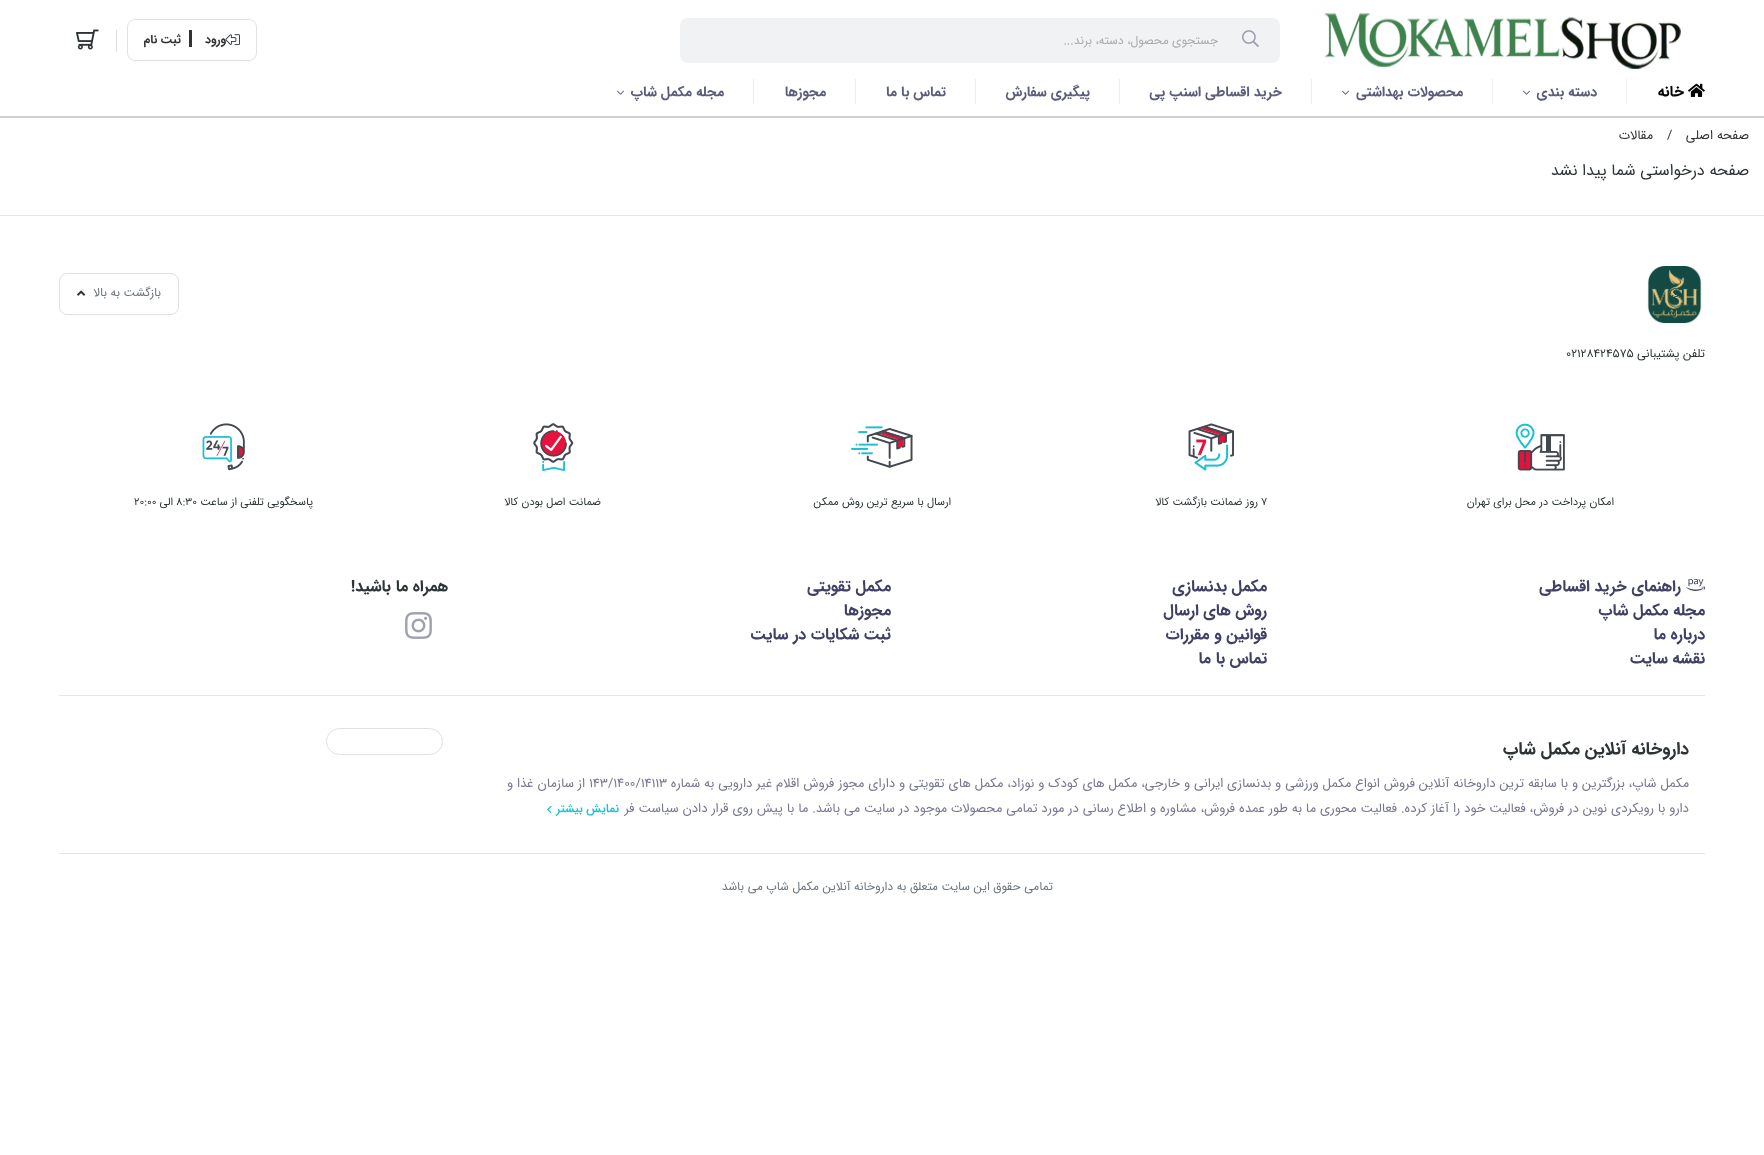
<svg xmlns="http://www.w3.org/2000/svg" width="1764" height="1155">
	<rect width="100%" height="100%" fill="#FFFFFF" />
	<rect x="0" y="116" width="1764" height="2" fill="#D0D0D0" />
	<image x="1323" y="13" width="358" height="56" href="assets/img1.png" />
	<rect x="680" y="18" width="600" height="45" rx="8" fill="#F1F2F4" />
	<image x="1242" y="30" width="17" height="17" href="assets/img2.png" />
	<text x="1218" y="44" font-family="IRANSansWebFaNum" font-size="12" direction="rtl" fill="#AAAAAA">جستجوی محصول، دسته، برند...</text>
	<rect x="127.5" y="19.5" width="129" height="41" rx="7.5" fill="none" stroke="#DEE2E6" />
	<text x="226" y="43" font-family="IRANSansWebFaNum" font-size="12" font-weight="700" direction="rtl" fill="#333333">ورود</text>
	<image x="225" y="34" width="15" height="11" href="assets/img3.png" />
	<rect x="189" y="30" width="3" height="17" fill="#333333" />
	<text x="181" y="43" font-family="IRANSansWebFaNum" font-size="12" font-weight="700" direction="rtl" fill="#333333">ثبت نام</text>
	<rect x="116" y="30" width="1" height="22" fill="#E3DEDE" />
	<image x="76" y="29" width="23" height="21" href="assets/img4.png" />
	<image x="1688" y="83" width="17" height="14" href="assets/img5.png" />
	<text x="1684" y="96" font-family="IRANSansWebFaNum" font-size="15" font-weight="700" direction="rtl" fill="#000000">خانه</text>
	<rect x="1626" y="79" width="1" height="25" fill="#EEEEEE" />
	<text x="1597" y="96" font-family="IRANSansWebFaNum" font-size="14" font-weight="700" direction="rtl" fill="#5A5C7A">دسته بندی</text>
	<image x="1523" y="90" width="7" height="5" href="assets/img6.png" />
	<rect x="1492" y="79" width="1" height="25" fill="#EEEEEE" />
	<text x="1463" y="96" font-family="IRANSansWebFaNum" font-size="14" font-weight="700" direction="rtl" fill="#5A5C7A">محصولات بهداشتی</text>
	<image x="1342" y="90" width="7" height="5" href="assets/img6.png" />
	<rect x="1311" y="79" width="1" height="25" fill="#EEEEEE" />
	<text x="1282" y="96" font-family="IRANSansWebFaNum" font-size="14" font-weight="700" direction="rtl" fill="#5A5C7A">خرید اقساطی اسنپ پی</text>
	<rect x="1119" y="79" width="1" height="25" fill="#EEEEEE" />
	<text x="1090" y="96" font-family="IRANSansWebFaNum" font-size="14" font-weight="700" direction="rtl" fill="#5A5C7A">پیگیری سفارش</text>
	<rect x="975" y="79" width="1" height="25" fill="#EEEEEE" />
	<text x="946" y="96" font-family="IRANSansWebFaNum" font-size="14" font-weight="700" direction="rtl" fill="#5A5C7A">تماس با ما</text>
	<rect x="855" y="79" width="1" height="25" fill="#EEEEEE" />
	<text x="826" y="96" font-family="IRANSansWebFaNum" font-size="14" font-weight="700" direction="rtl" fill="#5A5C7A">مجوزها</text>
	<rect x="753" y="79" width="1" height="25" fill="#EEEEEE" />
	<text x="724" y="96" font-family="IRANSansWebFaNum" font-size="14" font-weight="700" direction="rtl" fill="#5A5C7A">مجله مکمل شاپ</text>
	<image x="617" y="90" width="7" height="5" href="assets/img6.png" />
	<text x="1749" y="139" font-family="IRANSansWebFaNum" font-size="13" direction="rtl" fill="#333333">صفحه اصلی</text>
	<text x="1667" y="139" font-family="IRANSansWebFaNum" font-size="13" fill="#333333">/</text>
	<text x="1653" y="139" font-family="IRANSansWebFaNum" font-size="13" direction="rtl" fill="#333333">مقالات</text>
	<text x="1749" y="175" font-family="IRANSansWebFaNum" font-size="16" direction="rtl" fill="#2D3436">صفحه درخواستی شما پیدا نشد</text>
	<rect x="0" y="215" width="1764" height="1" fill="#E6E6E6" />
	<image x="1647" y="266" width="55" height="58" href="assets/img7.png" />
	<rect x="59.5" y="273.5" width="119" height="41" rx="7.5" fill="none" stroke="#E0E0E6" />
	<text x="161" y="296" font-family="IRANSansWebFaNum" font-size="12" direction="rtl" fill="#6C757D">بازگشت به بالا</text>
	<image x="77" y="290" width="9" height="6" href="assets/img8.png" />
	<text x="1705" y="357" font-family="IRANSansWebFaNum" font-size="12" direction="rtl" fill="#2D3436">تلفن پشتیبانی</text>
	<text x="1566" y="357" font-family="IRANSansWebFaNum" font-size="12" fill="#2D3436">02128424575</text>
	<image x="1515" y="423" width="50" height="48" href="assets/img9.png" />
	<text x="1614" y="505" font-family="IRANSansWebFaNum" font-size="11" direction="rtl" fill="#2D3436">امکان پرداخت در محل برای تهران</text>
	<image x="1188" y="423" width="46" height="48" href="assets/img10.png" />
	<text x="1261" y="505" font-family="IRANSansWebFaNum" font-size="11" fill="#2D3436">7</text>
	<text x="1258" y="505" font-family="IRANSansWebFaNum" font-size="11" direction="rtl" fill="#2D3436">روز ضمانت بازگشت کالا</text>
	<image x="851" y="426" width="62" height="42" href="assets/img11.png" />
	<text x="951" y="505" font-family="IRANSansWebFaNum" font-size="11" direction="rtl" fill="#2D3436">ارسال با سریع ترین روش ممکن</text>
	<image x="533" y="423" width="41" height="48" href="assets/img12.png" />
	<text x="601" y="505" font-family="IRANSansWebFaNum" font-size="11" direction="rtl" fill="#2D3436">ضمانت اصل بودن کالا</text>
	<image x="202" y="423" width="43" height="48" href="assets/img13.png" />
	<text x="313" y="505" font-family="IRANSansWebFaNum" font-size="11" direction="rtl" fill="#2D3436">پاسخگویی تلفنی از ساعت</text>
	<text x="176" y="505" font-family="IRANSansWebFaNum" font-size="11" fill="#2D3436">8:30</text>
	<text x="173" y="505" font-family="IRANSansWebFaNum" font-size="11" direction="rtl" fill="#2D3436">الی</text>
	<text x="134" y="505" font-family="IRANSansWebFaNum" font-size="11" fill="#2D3436">20:00</text>
	<image x="1686" y="579" width="20" height="12" href="assets/img14.png" />
	<g font-family="IRANSansWebFaNum" font-size="16" font-weight="700" direction="rtl" fill="#3F4064">
		<text x="1681" y="591">راهنمای خرید اقساطی</text>
		<text x="1267" y="591">مکمل بدنسازی</text>
		<text x="891" y="591">مکمل تقویتی</text>
		<text x="1705" y="615">مجله مکمل شاپ</text>
		<text x="1267" y="615">روش های ارسال</text>
		<text x="891" y="615">مجوزها</text>
		<text x="1705" y="639">درباره ما</text>
		<text x="1267" y="639">قوانین و مقررات</text>
		<text x="891" y="639">ثبت شکایات در سایت</text>
		<text x="1705" y="663">نقشه سایت</text>
		<text x="1267" y="663">تماس با ما</text>
	</g>
	<text x="448" y="591" font-family="IRANSansWebFaNum" font-size="16" font-weight="700" direction="rtl" fill="#2D3436">همراه ما باشید!</text>
	<image x="405" y="612" width="27" height="27" href="assets/img15.png" />
	<rect x="59" y="695" width="1646" height="1" fill="#E6E6E6" />
	<text x="1689" y="754" font-family="IRANSansWebFaNum" font-size="17.6" font-weight="700" direction="rtl" fill="#2D3436">داروخانه آنلاین مکمل شاپ</text>
	<text x="1689" y="787" font-family="IRANSansWebFaNum" font-size="13" direction="rtl" fill="#767790">مکمل شاپ، بزرگترین و با سابقه ترین داروخانه آنلاین فروش انواع مکمل ورزشی و بدنسازی ایرانی و خارجی، مکمل های کودک و نوزاد، مکمل های تقویتی و دارای مجوز فروش اقلام غیر دارویی به شماره</text>
	<text x="589" y="787" font-family="IRANSansWebFaNum" font-size="13" fill="#767790">143/1400/14113</text>
	<g font-family="IRANSansWebFaNum" font-size="13" direction="rtl" fill="#767790">
		<text x="585" y="787">از سازمان غذا و</text>
		<text x="1689" y="812">دارو با رويکردی نوين در فروش، فعاليت خود را آغاز کرده. فعاليت محوری ما به طور عمده فروش، مشاوره و اطلاع رسانی در مورد تمامی محصولات موجود در سایت می باشد. ما با پيش روی قرار دادن سياست فر</text>
	</g>
	<text x="619" y="812" font-family="IRANSansWebFaNum" font-size="12" font-weight="500" direction="rtl" fill="#19BFD3">نمایش بیشتر</text>
	<image x="547" y="805" width="5" height="9" href="assets/img16.png" />
	<rect x="326.5" y="728.5" width="116" height="26" rx="13" fill="none" stroke="#E0E0E6" />
	<rect x="59" y="853" width="1646" height="1" fill="#E6E6E6" />
	<text x="1053" y="890" font-family="IRANSansWebFaNum" font-size="12" direction="rtl" fill="#6C757D">تمامی حقوق این سایت متعلق به داروخانه آنلاین مکمل شاپ می باشد</text>
</svg>
